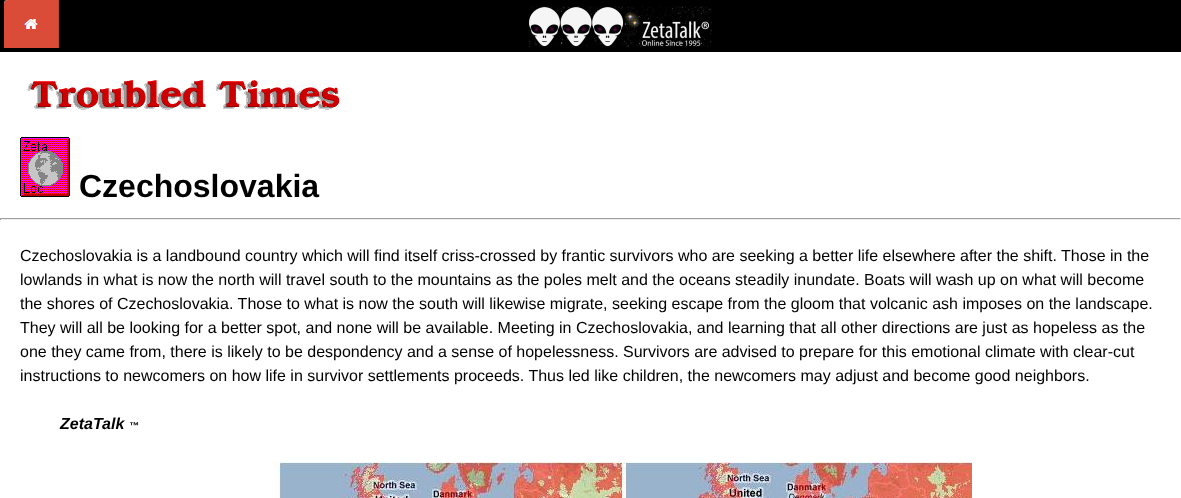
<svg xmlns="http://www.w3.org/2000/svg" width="1181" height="498">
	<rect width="100%" height="100%" fill="#FFFFFF" />
	<rect x="0" y="0" width="1181" height="52" fill="#000000" />
	<image x="4" y="0" width="55" height="48" href="assets/img1.png" />
	<image x="528" y="6" width="184" height="41" href="assets/img2.png" />
	<image x="27" y="80" width="313" height="30" href="assets/img3.png" />
	<image x="20" y="137" width="50" height="60" href="assets/img4.png" />
	<text x="79" y="197" font-family="Liberation Sans" font-size="32" font-weight="700" fill="#000000">Czechoslovakia</text>
	<rect x="0" y="218" width="1181" height="1" fill="#9F9F9F" />
	<rect x="1180" y="218" width="1" height="2" fill="#EEEEEE" />
	<rect x="0" y="219" width="1181" height="1" fill="#EEEEEE" />
	<rect x="0" y="218" width="1" height="2" fill="#9F9F9F" />
	<g font-family="Liberation Sans" font-size="16" fill="#000000">
		<text x="20" y="261">Czechoslovakia is a landbound country which will find itself criss-crossed by frantic survivors who are seeking a better life elsewhere after the shift. Those in the</text>
		<text x="20" y="285">lowlands in what is now the north will travel south to the mountains as the poles melt and the oceans steadily inundate. Boats will wash up on what will become</text>
		<text x="20" y="309">the shores of Czechoslovakia. Those to what is now the south will likewise migrate, seeking escape from the gloom that volcanic ash imposes on the landscape.</text>
		<text x="20" y="333">They will all be looking for a better spot, and none will be available. Meeting in Czechoslovakia, and learning that all other directions are just as hopeless as the</text>
		<text x="20" y="357">one they came from, there is likely to be despondency and a sense of hopelessness. Survivors are advised to prepare for this emotional climate with clear-cut</text>
		<text x="20" y="381">instructions to newcomers on how life in survivor settlements proceeds. Thus led like children, the newcomers may adjust and become good neighbors.</text>
	</g>
	<text x="60" y="429" font-family="Liberation Sans" font-size="16" font-weight="700" font-style="italic" fill="#000000">ZetaTalk</text>
	<text x="129" y="429" font-family="Liberation Sans" font-size="10" font-weight="700" font-style="italic" fill="#000000">™</text>
	<image x="274" y="462" width="698" height="36" href="assets/img5.png" />
</svg>
